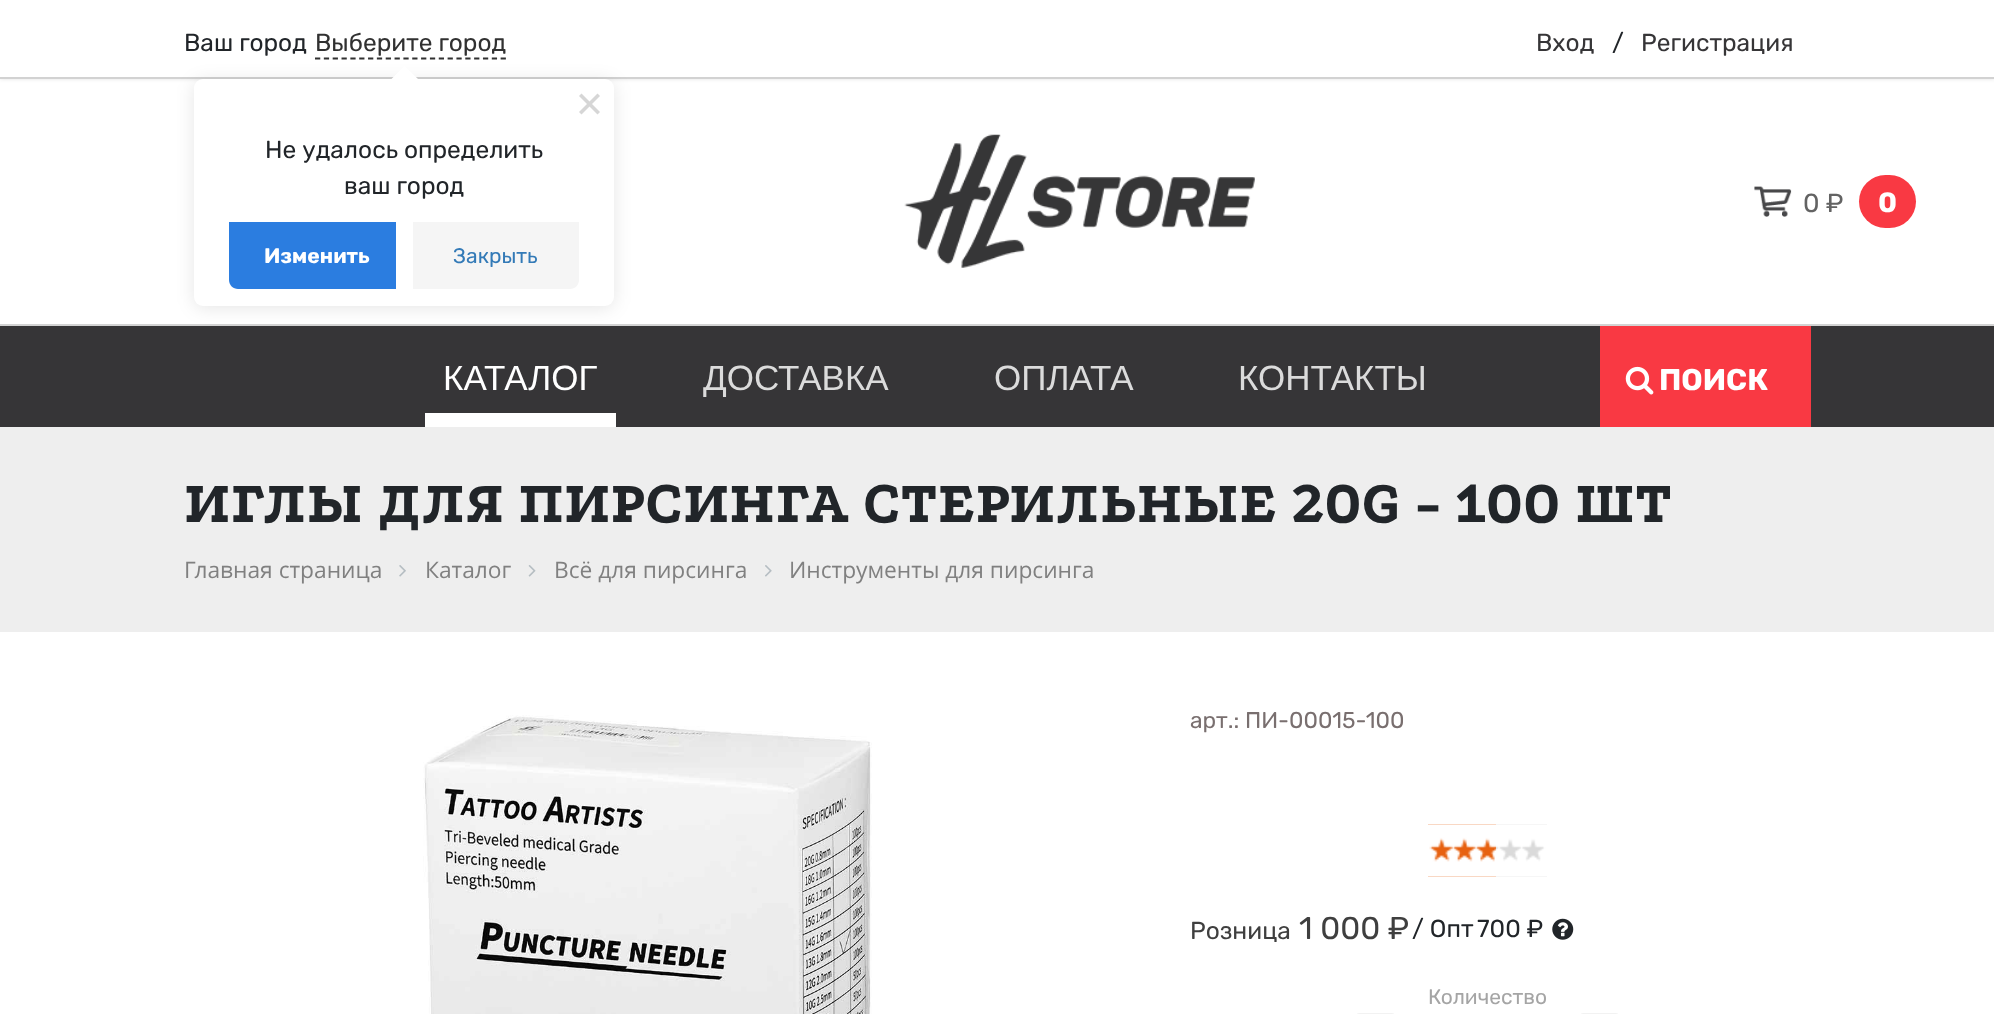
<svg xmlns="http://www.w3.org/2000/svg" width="1994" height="1014">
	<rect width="100%" height="100%" fill="#FFFFFF" />
	<rect x="0" y="0" width="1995" height="79" fill="#000000" fill-opacity="0.11" filter="blur(2px)" />
	<rect x="0" y="0" width="1994" height="77" fill="#FFFFFF" />
	<rect x="0" y="77" width="1994" height="2" fill="#D2D2D2" />
	<text x="184" y="51" font-family="Rubik" font-size="24.5" fill="#212529">Ваш город</text>
	<text x="315" y="51" font-family="Rubik" font-size="24.5" fill="#313131">Выберите город</text>
	<path d="M315 58.5H506" fill="none" stroke="#313131" stroke-width="1.8" stroke-dasharray="5.25 3.59" />
	<text x="1536" y="51" font-family="Rubik" font-size="24.5" fill="#363537">Вход</text>
	<text x="1612" y="51" font-family="Rubik" font-size="24.5" fill="#212529">/</text>
	<text x="1641" y="51" font-family="Rubik" font-size="24.5" fill="#363537">Регистрация</text>
	<rect x="0" y="326" width="1994" height="101" fill="#363537" />
	<rect x="0" y="324" width="1994" height="2" fill="#D3D3D3" />
	<rect x="194" y="81" width="420" height="227" rx="9" fill="#000000" fill-opacity="0.1" filter="blur(9px)" />
	<rect x="194" y="79" width="420" height="227" rx="9" fill="#FFFFFF" />
	<path d="M404.5 66L418.5 79.5L404.5 93L391 79.5Z" fill="#FFFFFF" />
	<path d="M597.5 93.5L600 96L581.5 114.5L579 112Z" fill="#D6D6D6" />
	<path d="M579 96L581.5 93.5L600 112L597.5 114.5Z" fill="#D6D6D6" />
	<g font-family="Rubik" font-size="24.5" fill="#212529">
		<text x="265" y="158">Не удалось определить</text>
		<text x="344" y="194">ваш город</text>
	</g>
	<path d="M229 222H396V289H238C233 289 229 285 229 280Z" fill="#2B7DE0" />
	<text x="264" y="263" font-family="Rubik" font-size="21" font-weight="700" fill="#FFFFFF">Изменить</text>
	<path d="M413 222H579V280C579 285 575 289 570 289H413Z" fill="#F5F5F5" />
	<text x="453" y="263" font-family="Rubik" font-size="21" fill="#337AB7">Закрыть</text>
	<image x="904" y="134" width="351" height="134" href="assets/img1.png" />
	<image x="1754" y="186" width="38" height="31" href="assets/img2.png" />
	<text x="1803" y="212" font-family="Rubik" font-size="26" fill="#636363">0 ₽</text>
	<rect x="1859" y="175" width="57" height="53" rx="26.5" fill="#F93943" />
	<text x="1878" y="212" font-family="Rubik" font-size="28" font-weight="700" fill="#FFFFFF">0</text>
	<rect x="425" y="413" width="191" height="14" fill="#FFFFFF" />
	<text x="443" y="390" font-family="Liberation Sans" font-size="35" fill="#FFFFFF">КАТАЛОГ</text>
	<g font-family="Liberation Sans" font-size="35" fill="#DBDBDB">
		<text x="703" y="390">ДОСТАВКА</text>
		<text x="994" y="390">ОПЛАТА</text>
		<text x="1238" y="390">КОНТАКТЫ</text>
	</g>
	<rect x="1600" y="326" width="211" height="101" fill="#F93943" />
	<image x="1625" y="366" width="29" height="29" href="assets/img3.png" />
	<text x="1659" y="390" font-family="Rubik" font-size="30" font-weight="700" fill="#FFFFFF">ПОИСК</text>
	<rect x="0" y="427" width="1994" height="205" fill="#EEEEEE" />
	<text x="184" y="522" font-family="Podkova" font-size="61.25" font-weight="800" fill="#212529">ИГЛЫ ДЛЯ ПИРСИНГА СТЕРИЛЬНЫЕ 20G - 100 ШТ</text>
	<text x="184" y="578" font-family="Open Sans" font-size="22.75" fill="#808080">Главная страница</text>
	<image x="399" y="565" width="7" height="12" href="assets/img4.png" />
	<text x="425" y="578" font-family="Open Sans" font-size="22.75" fill="#808080">Каталог</text>
	<image x="528" y="565" width="8" height="12" href="assets/img5.png" />
	<text x="554" y="578" font-family="Open Sans" font-size="22.75" fill="#808080">Всё для пирсинга</text>
	<image x="765" y="565" width="7" height="12" href="assets/img6.png" />
	<text x="789" y="578" font-family="Open Sans" font-size="22.75" fill="#808080">Инструменты для пирсинга</text>
	<image x="423" y="715" width="449" height="299" href="assets/img7.png" />
	<text x="1190" y="728" font-family="Rubik" font-size="22.75" fill="#796F6F">арт.: ПИ-00015-100</text>
	<rect x="1496" y="824" width="51" height="53" fill="#DADADA" />
	<rect x="1428" y="824" width="68" height="53" fill="#E76110" />
	<image x="1428" y="824" width="119" height="53" href="assets/img8.png" />
	<text x="1190" y="939" font-family="Rubik" font-size="24.5" fill="#3F3F3F">Розница</text>
	<text x="1299" y="939" font-family="Rubik" font-size="31.5" fill="#3F3F3F">1 000 ₽</text>
	<g font-family="Rubik" font-size="24.5" fill="#212529">
		<text x="1412" y="937">/ Опт</text>
		<text x="1477" y="937">700 ₽</text>
	</g>
	<image x="1552" y="918" width="22" height="22" href="assets/img9.png" />
	<text x="1428" y="1004" font-family="Rubik" font-size="21" fill="#A5A5A5">Количество</text>
	<rect x="1356" y="1013" width="39" height="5" rx="4" fill="#F2F2F2" />
	<rect x="1580" y="1013" width="39" height="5" rx="4" fill="#F2F2F2" />
</svg>
